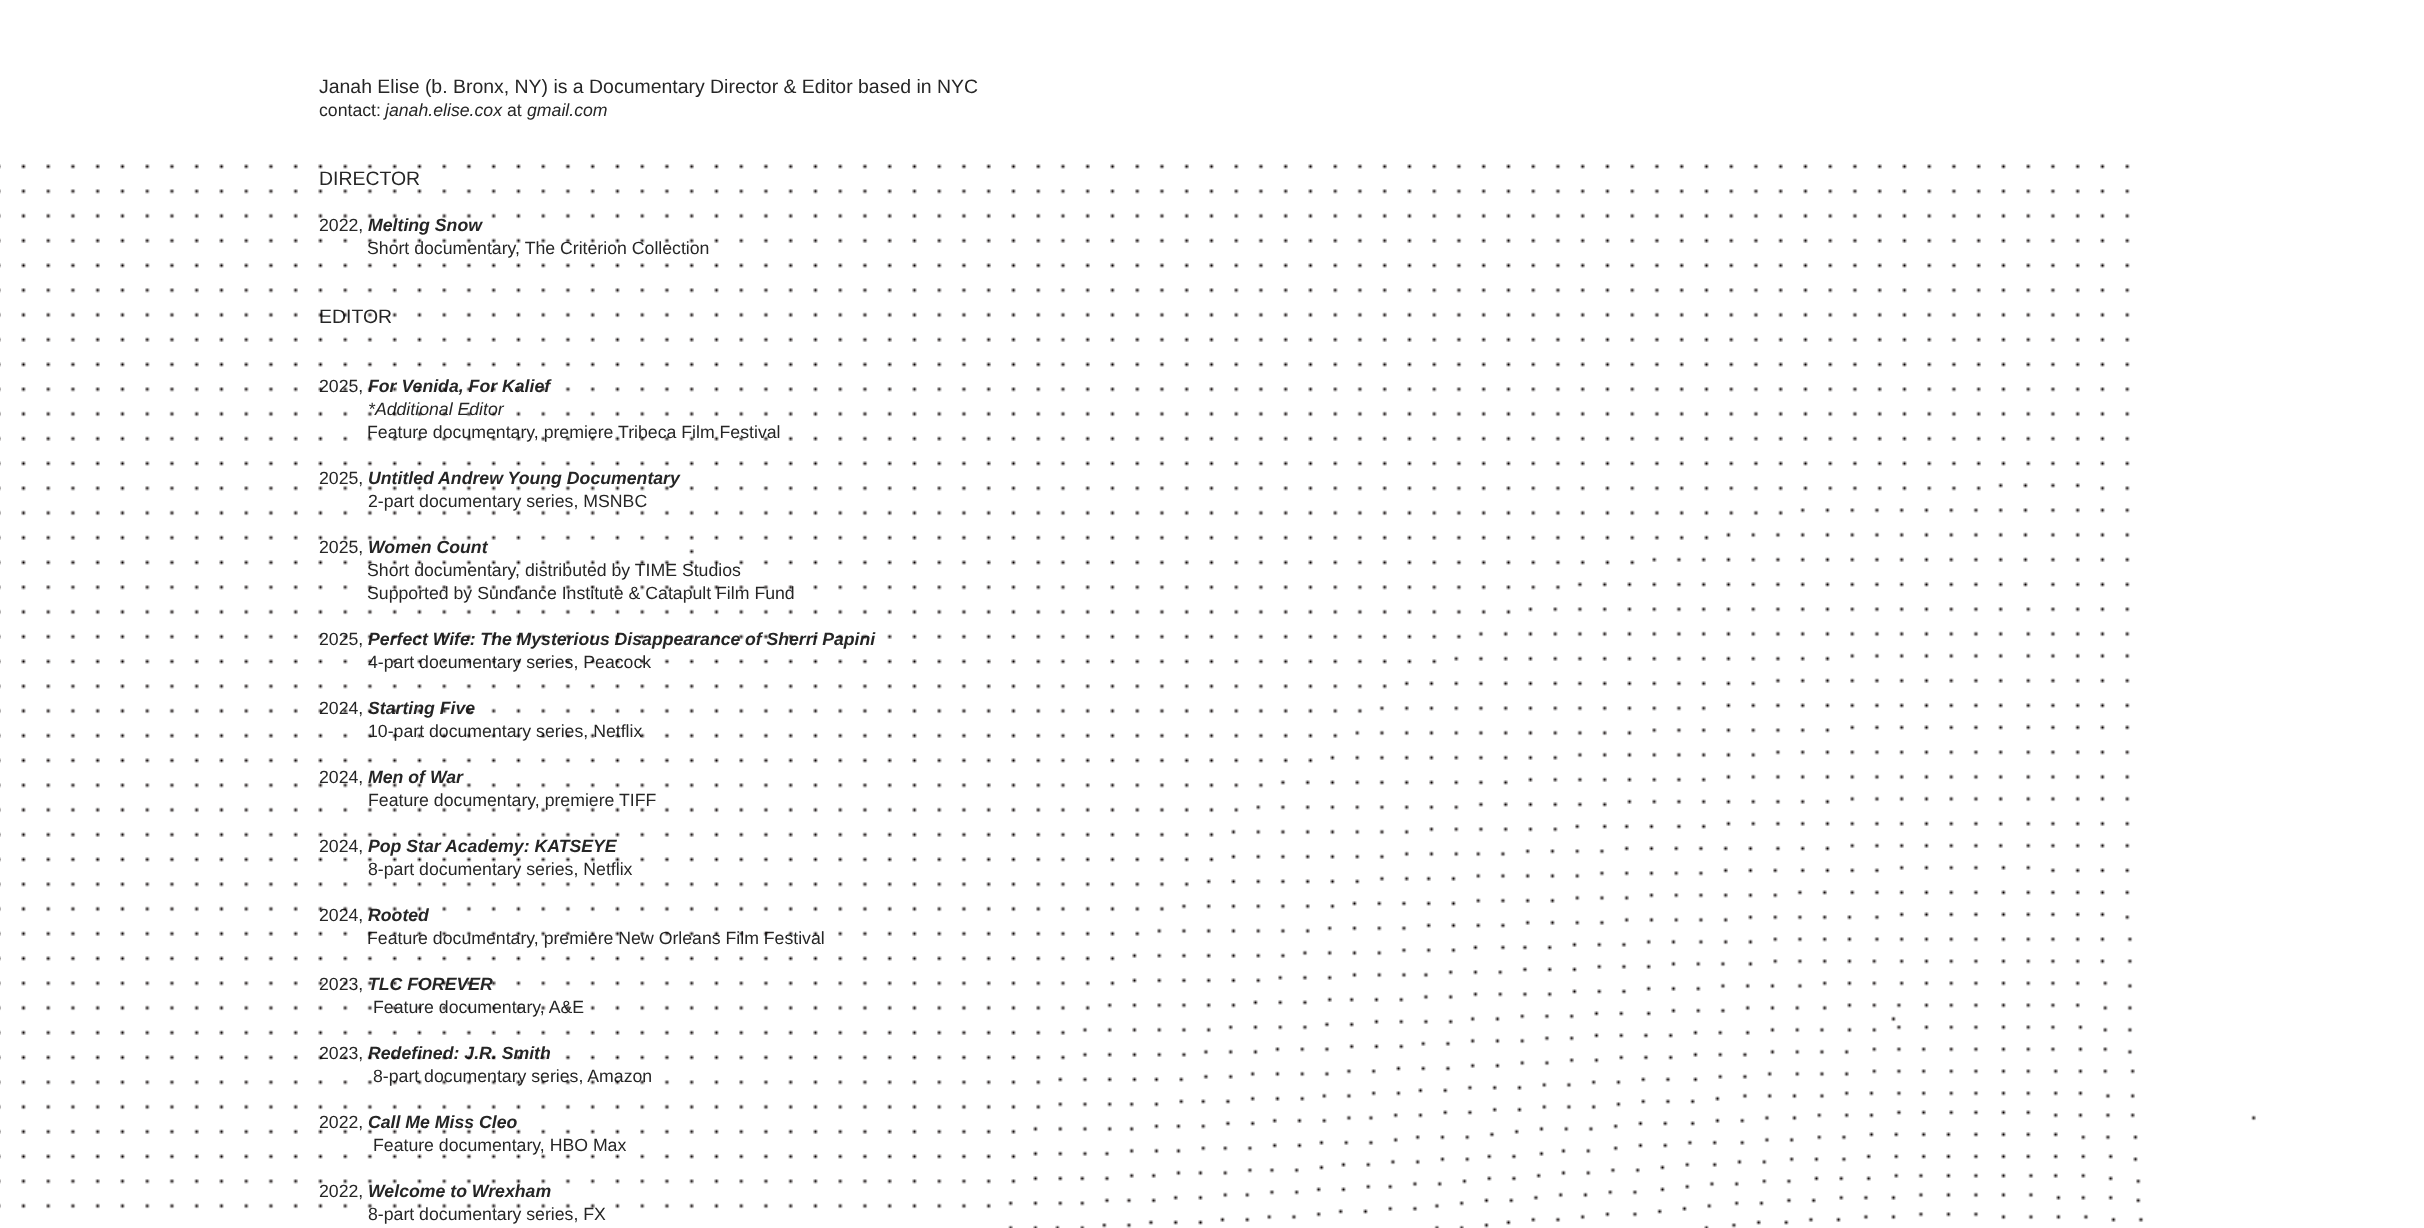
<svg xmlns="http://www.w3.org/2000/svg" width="2424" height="1228">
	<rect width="100%" height="100%" fill="#FFFFFF" />
	<text x="319" y="93" font-family="Liberation Sans" font-size="19.45" fill="#262626">Janah Elise (b. Bronx, NY) is a Documentary Director &amp; Editor based in NYC</text>
	<text x="319" y="116" font-family="Liberation Sans" font-size="17.7" fill="#262626">contact:</text>
	<text x="385" y="116" font-family="Liberation Sans" font-size="17.7" font-style="italic" fill="#262626">janah.elise.cox</text>
	<text x="507" y="116" font-family="Liberation Sans" font-size="17.7" fill="#262626">at</text>
	<text x="527" y="116" font-family="Liberation Sans" font-size="17.7" font-style="italic" fill="#262626">gmail.com</text>
	<text x="319" y="185" font-family="Liberation Sans" font-size="19.45" fill="#262626">DIRECTOR</text>
	<text x="319" y="231" font-family="Liberation Sans" font-size="17.7" fill="#262626">2022,</text>
	<text x="368" y="231" font-family="Liberation Sans" font-size="17.7" font-weight="700" font-style="italic" fill="#262626">Melting Snow</text>
	<text x="367" y="254" font-family="Liberation Sans" font-size="17.7" fill="#262626">Short documentary, The Criterion Collection</text>
	<text x="319" y="323" font-family="Liberation Sans" font-size="19.45" fill="#262626">EDITOR</text>
	<text x="319" y="392" font-family="Liberation Sans" font-size="17.7" fill="#262626">2025,</text>
	<text x="368" y="392" font-family="Liberation Sans" font-size="17.7" font-weight="700" font-style="italic" fill="#262626">For Venida, For Kalief</text>
	<text x="368" y="415" font-family="Liberation Sans" font-size="17.7" font-style="italic" fill="#262626">*Additional Editor</text>
	<g font-family="Liberation Sans" font-size="17.7" fill="#262626">
		<text x="367" y="438">Feature documentary, premiere Tribeca Film Festival</text>
		<text x="319" y="484">2025,</text>
	</g>
	<text x="368" y="484" font-family="Liberation Sans" font-size="17.7" font-weight="700" font-style="italic" fill="#262626">Untitled Andrew Young Documentary</text>
	<g font-family="Liberation Sans" font-size="17.7" fill="#262626">
		<text x="368" y="507">2-part documentary series, MSNBC</text>
		<text x="319" y="553">2025,</text>
	</g>
	<text x="368" y="553" font-family="Liberation Sans" font-size="17.7" font-weight="700" font-style="italic" fill="#262626">Women Count</text>
	<g font-family="Liberation Sans" font-size="17.7" fill="#262626">
		<text x="367" y="576">Short documentary, distributed by TIME Studios</text>
		<text x="367" y="599">Supported by Sundance Institute &amp; Catapult Film Fund</text>
		<text x="319" y="645">2025,</text>
	</g>
	<text x="368" y="645" word-spacing="-0.25" font-family="Liberation Sans" font-size="17.7" font-weight="700" font-style="italic" fill="#262626">Perfect Wife: The Mysterious Disappearance of Sherri Papini</text>
	<g font-family="Liberation Sans" font-size="17.7" fill="#262626">
		<text x="368" y="668">4-part documentary series, Peacock</text>
		<text x="319" y="714">2024,</text>
	</g>
	<text x="368" y="714" font-family="Liberation Sans" font-size="17.7" font-weight="700" font-style="italic" fill="#262626">Starting Five</text>
	<g font-family="Liberation Sans" font-size="17.7" fill="#262626">
		<text x="368" y="737">10-part documentary series, Netflix</text>
		<text x="319" y="783">2024,</text>
	</g>
	<text x="368" y="783" font-family="Liberation Sans" font-size="17.7" font-weight="700" font-style="italic" fill="#262626">Men of War</text>
	<g font-family="Liberation Sans" font-size="17.7" fill="#262626">
		<text x="368" y="806">Feature documentary, premiere TIFF</text>
		<text x="319" y="852">2024,</text>
	</g>
	<text x="368" y="852" font-family="Liberation Sans" font-size="17.7" font-weight="700" font-style="italic" fill="#262626">Pop Star Academy: KATSEYE</text>
	<g font-family="Liberation Sans" font-size="17.7" fill="#262626">
		<text x="368" y="875">8-part documentary series, Netflix</text>
		<text x="319" y="921">2024,</text>
	</g>
	<text x="368" y="921" font-family="Liberation Sans" font-size="17.7" font-weight="700" font-style="italic" fill="#262626">Rooted</text>
	<g font-family="Liberation Sans" font-size="17.7" fill="#262626">
		<text x="367" y="944">Feature documentary, premiere New Orleans Film Festival</text>
		<text x="319" y="990">2023,</text>
	</g>
	<text x="368" y="990" font-family="Liberation Sans" font-size="17.7" font-weight="700" font-style="italic" fill="#262626">TLC FOREVER</text>
	<g font-family="Liberation Sans" font-size="17.7" fill="#262626">
		<text x="373" y="1013">Feature documentary, A&amp;E</text>
		<text x="319" y="1059">2023,</text>
	</g>
	<text x="368" y="1059" font-family="Liberation Sans" font-size="17.7" font-weight="700" font-style="italic" fill="#262626">Redefined: J.R. Smith</text>
	<g font-family="Liberation Sans" font-size="17.7" fill="#262626">
		<text x="373" y="1082">8-part documentary series, Amazon</text>
		<text x="319" y="1128">2022,</text>
	</g>
	<text x="368" y="1128" font-family="Liberation Sans" font-size="17.7" font-weight="700" font-style="italic" fill="#262626">Call Me Miss Cleo</text>
	<g font-family="Liberation Sans" font-size="17.7" fill="#262626">
		<text x="373" y="1151">Feature documentary, HBO Max</text>
		<text x="319" y="1197">2022,</text>
	</g>
	<text x="368" y="1197" font-family="Liberation Sans" font-size="17.7" font-weight="700" font-style="italic" fill="#262626">Welcome to Wrexham</text>
	<text x="368" y="1220" font-family="Liberation Sans" font-size="17.7" fill="#262626">8-part documentary series, FX</text>
	<image x="0" y="164" width="2256" height="1064" href="assets/img1.png" />
</svg>
